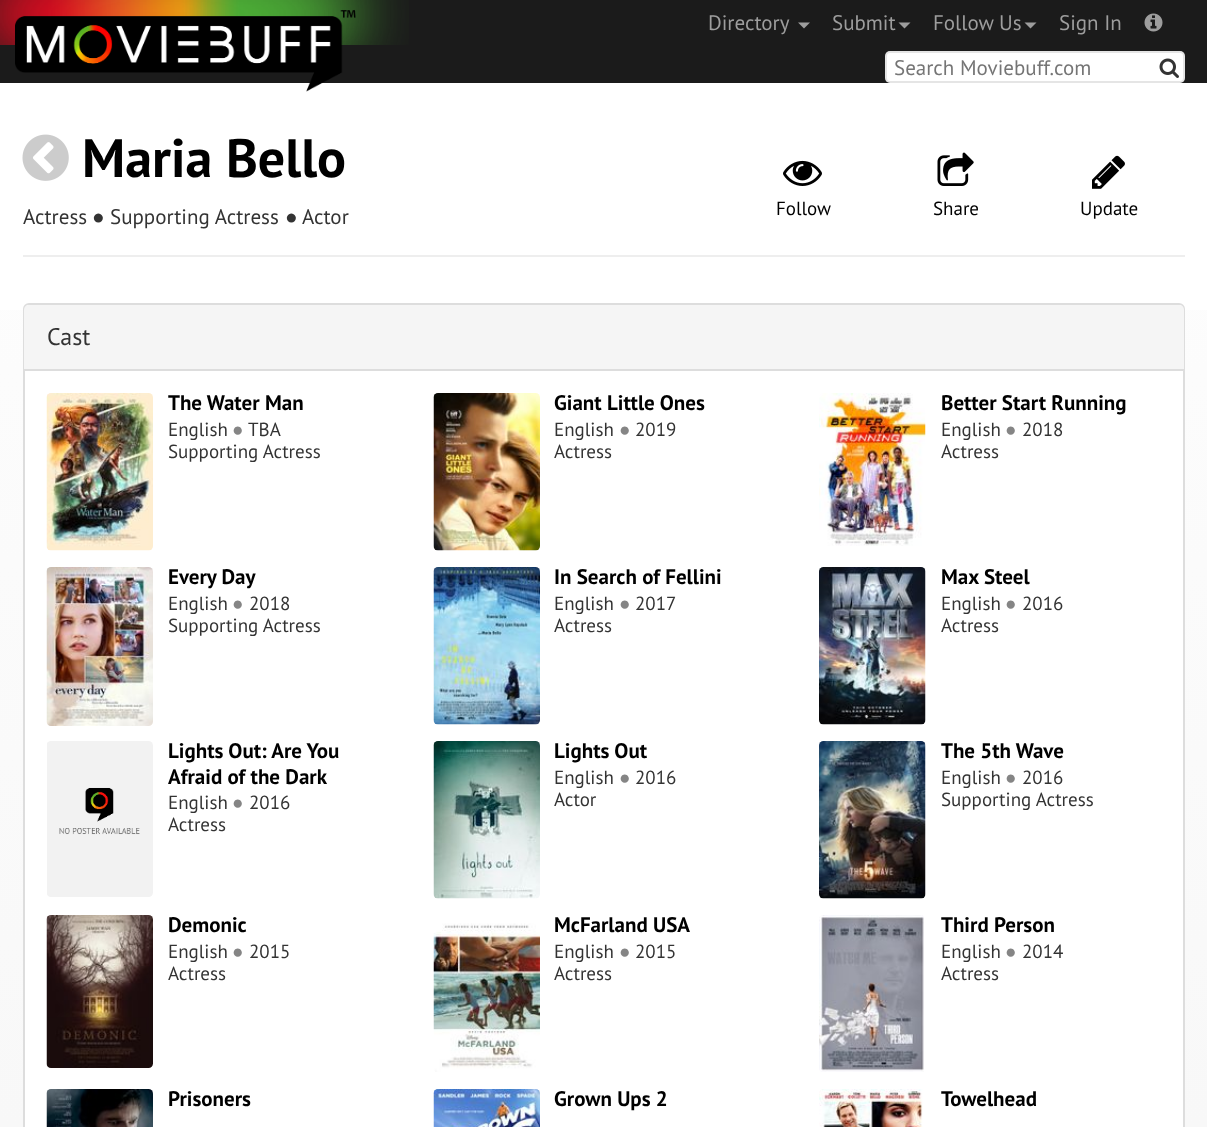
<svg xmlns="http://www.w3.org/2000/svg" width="1207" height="1127">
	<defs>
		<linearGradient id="g1" gradientUnits="userSpaceOnUse" x1="604" y1="0" x2="604" y2="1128"><stop offset="0" stop-color="#FFFFFF" /><stop offset="0.33" stop-color="#FCFCFC" /><stop offset="0.67" stop-color="#FAFAFA" /><stop offset="1" stop-color="#F8F8F8" /></linearGradient>
	</defs>
	<rect width="100%" height="100%" fill="#FFFFFF" />
	<rect x="0" y="310" width="1207" height="817" fill="url(#g1)" />
	<rect x="0" y="0" width="1207" height="83" fill="#1B1B1B" />
	<image x="0" y="0" width="409" height="45" href="assets/img1.png" />
	<image x="15" y="10" width="341" height="82" href="assets/img2.png" />
	<text x="708" y="30" font-family="PT Sans" font-size="21" fill="#9D9D9D">Directory</text>
	<path d="M798 22.5H810L804 28.5Z" fill="#9D9D9D" />
	<text x="832" y="30" font-family="PT Sans" font-size="21" fill="#9D9D9D">Submit</text>
	<path d="M898.5 22.5H910.5L904.5 28.5Z" fill="#9D9D9D" />
	<text x="933" y="30" font-family="PT Sans" font-size="21" fill="#9D9D9D">Follow Us</text>
	<path d="M1024.5 22.5H1036.5L1030.5 28.5Z" fill="#9D9D9D" />
	<text x="1059" y="30" font-family="PT Sans" font-size="21" fill="#9D9D9D">Sign In</text>
	<image x="1144" y="13" width="19" height="19" href="assets/img3.png" />
	<rect x="885" y="51" width="300" height="32" rx="5" fill="#FFFFFF" />
	<rect x="886" y="52" width="298" height="30" rx="4" fill="none" stroke="#000000" stroke-opacity="0.1" stroke-width="2" />
	<text x="894" y="75" font-family="PT Sans" font-size="21" fill="#757575">Search Moviebuff.com</text>
	<image x="1159" y="58" width="20" height="20" href="assets/img4.png" />
	<image x="22" y="134" width="47" height="47" href="assets/img5.png" />
	<text x="82" y="177" font-family="PT Sans" font-size="54" font-weight="700" fill="#000000">Maria Bello</text>
	<text x="23" y="224" font-family="PT Sans" font-size="21" fill="#333333">Actress</text>
	<text x="92" y="224" font-family="Liberation Serif" font-size="21" fill="#333333">●</text>
	<text x="110" y="224" font-family="PT Sans" font-size="21" fill="#333333">Supporting Actress</text>
	<text x="285" y="224" font-family="Liberation Serif" font-size="21" fill="#333333">●</text>
	<text x="302" y="224" font-family="PT Sans" font-size="21" fill="#333333">Actor</text>
	<image x="783" y="160" width="39" height="26" href="assets/img6.png" />
	<text x="776" y="215" font-family="PT Sans" font-size="19" fill="#000000">Follow</text>
	<image x="937" y="152" width="37" height="34" href="assets/img7.png" />
	<text x="933" y="215" font-family="PT Sans" font-size="19" fill="#000000">Share</text>
	<image x="1092" y="155" width="33" height="34" href="assets/img8.png" />
	<text x="1080" y="215" font-family="PT Sans" font-size="19" fill="#000000">Update</text>
	<rect x="23" y="255" width="1162" height="2" fill="#EEEEEE" />
	<rect x="24" y="304" width="1160" height="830" rx="5" fill="#FFFFFF" stroke="#DDDDDD" stroke-width="2" />
	<path d="M29 305H1179C1182 305 1184 307 1184 310V371H24V310C24 307 26 305 29 305Z" fill="#F5F5F5" />
	<rect x="24" y="369" width="1160" height="2" fill="#DDDDDD" />
	<text x="47" y="345" font-family="PT Sans" font-size="24" fill="#333333">Cast</text>
	<image x="46" y="393" width="107" height="158" href="assets/img9.png" />
	<text x="168" y="410" font-family="PT Sans" font-size="21" font-weight="700" fill="#000000">The Water Man</text>
	<text x="168" y="436" font-family="PT Sans" font-size="19" fill="#333333">English</text>
	<text x="232" y="436" font-family="Liberation Serif" font-size="19" fill="#858585">●</text>
	<g font-family="PT Sans" font-size="19" fill="#333333">
		<text x="248" y="436">TBA</text>
		<text x="168" y="458">Supporting Actress</text>
	</g>
	<image x="433" y="393" width="107" height="158" href="assets/img10.png" />
	<text x="554" y="410" font-family="PT Sans" font-size="21" font-weight="700" fill="#000000">Giant Little Ones</text>
	<text x="554" y="436" font-family="PT Sans" font-size="19" fill="#333333">English</text>
	<text x="619" y="436" font-family="Liberation Serif" font-size="19" fill="#858585">●</text>
	<g font-family="PT Sans" font-size="19" fill="#333333">
		<text x="635" y="436">2019</text>
		<text x="554" y="458">Actress</text>
	</g>
	<image x="819" y="393" width="107" height="153" href="assets/img11.png" />
	<text x="941" y="410" font-family="PT Sans" font-size="21" font-weight="700" fill="#000000">Better Start Running</text>
	<text x="941" y="436" font-family="PT Sans" font-size="19" fill="#333333">English</text>
	<text x="1005" y="436" font-family="Liberation Serif" font-size="19" fill="#858585">●</text>
	<g font-family="PT Sans" font-size="19" fill="#333333">
		<text x="1022" y="436">2018</text>
		<text x="941" y="458">Actress</text>
	</g>
	<image x="46" y="567" width="107" height="159" href="assets/img12.png" />
	<text x="168" y="584" font-family="PT Sans" font-size="21" font-weight="700" fill="#000000">Every Day</text>
	<text x="168" y="610" font-family="PT Sans" font-size="19" fill="#333333">English</text>
	<text x="232" y="610" font-family="Liberation Serif" font-size="19" fill="#858585">●</text>
	<g font-family="PT Sans" font-size="19" fill="#333333">
		<text x="249" y="610">2018</text>
		<text x="168" y="632">Supporting Actress</text>
	</g>
	<image x="433" y="567" width="107" height="158" href="assets/img13.png" />
	<text x="554" y="584" font-family="PT Sans" font-size="21" font-weight="700" fill="#000000">In Search of Fellini</text>
	<text x="554" y="610" font-family="PT Sans" font-size="19" fill="#333333">English</text>
	<text x="619" y="610" font-family="Liberation Serif" font-size="19" fill="#858585">●</text>
	<g font-family="PT Sans" font-size="19" fill="#333333">
		<text x="635" y="610">2017</text>
		<text x="554" y="632">Actress</text>
	</g>
	<image x="819" y="567" width="107" height="158" href="assets/img14.png" />
	<text x="941" y="584" font-family="PT Sans" font-size="21" font-weight="700" fill="#000000">Max Steel</text>
	<text x="941" y="610" font-family="PT Sans" font-size="19" fill="#333333">English</text>
	<text x="1005" y="610" font-family="Liberation Serif" font-size="19" fill="#858585">●</text>
	<g font-family="PT Sans" font-size="19" fill="#333333">
		<text x="1022" y="610">2016</text>
		<text x="941" y="632">Actress</text>
	</g>
	<image x="47" y="741" width="106" height="156" href="assets/img15.png" />
	<g font-family="PT Sans" font-size="21" font-weight="700" fill="#000000">
		<text x="168" y="758">Lights Out: Are You</text>
		<text x="168" y="784">Afraid of the Dark</text>
	</g>
	<text x="168" y="809" font-family="PT Sans" font-size="19" fill="#333333">English</text>
	<text x="232" y="809" font-family="Liberation Serif" font-size="19" fill="#858585">●</text>
	<g font-family="PT Sans" font-size="19" fill="#333333">
		<text x="249" y="809">2016</text>
		<text x="168" y="831">Actress</text>
	</g>
	<image x="433" y="741" width="107" height="158" href="assets/img16.png" />
	<text x="554" y="758" font-family="PT Sans" font-size="21" font-weight="700" fill="#000000">Lights Out</text>
	<text x="554" y="784" font-family="PT Sans" font-size="19" fill="#333333">English</text>
	<text x="619" y="784" font-family="Liberation Serif" font-size="19" fill="#858585">●</text>
	<g font-family="PT Sans" font-size="19" fill="#333333">
		<text x="635" y="784">2016</text>
		<text x="554" y="806">Actor</text>
	</g>
	<image x="819" y="741" width="107" height="158" href="assets/img17.png" />
	<text x="941" y="758" font-family="PT Sans" font-size="21" font-weight="700" fill="#000000">The 5th Wave</text>
	<text x="941" y="784" font-family="PT Sans" font-size="19" fill="#333333">English</text>
	<text x="1005" y="784" font-family="Liberation Serif" font-size="19" fill="#858585">●</text>
	<g font-family="PT Sans" font-size="19" fill="#333333">
		<text x="1022" y="784">2016</text>
		<text x="941" y="806">Supporting Actress</text>
	</g>
	<image x="46" y="915" width="107" height="153" href="assets/img18.png" />
	<text x="168" y="932" font-family="PT Sans" font-size="21" font-weight="700" fill="#000000">Demonic</text>
	<text x="168" y="958" font-family="PT Sans" font-size="19" fill="#333333">English</text>
	<text x="232" y="958" font-family="Liberation Serif" font-size="19" fill="#858585">●</text>
	<g font-family="PT Sans" font-size="19" fill="#333333">
		<text x="249" y="958">2015</text>
		<text x="168" y="980">Actress</text>
	</g>
	<image x="433" y="923" width="107" height="149" href="assets/img19.png" />
	<text x="554" y="932" font-family="PT Sans" font-size="21" font-weight="700" fill="#000000">McFarland USA</text>
	<text x="554" y="958" font-family="PT Sans" font-size="19" fill="#333333">English</text>
	<text x="619" y="958" font-family="Liberation Serif" font-size="19" fill="#858585">●</text>
	<g font-family="PT Sans" font-size="19" fill="#333333">
		<text x="635" y="958">2015</text>
		<text x="554" y="980">Actress</text>
	</g>
	<image x="819" y="915" width="105" height="157" href="assets/img20.png" />
	<text x="941" y="932" font-family="PT Sans" font-size="21" font-weight="700" fill="#000000">Third Person</text>
	<text x="941" y="958" font-family="PT Sans" font-size="19" fill="#333333">English</text>
	<text x="1005" y="958" font-family="Liberation Serif" font-size="19" fill="#858585">●</text>
	<g font-family="PT Sans" font-size="19" fill="#333333">
		<text x="1022" y="958">2014</text>
		<text x="941" y="980">Actress</text>
	</g>
	<image x="46" y="1089" width="107" height="38" href="assets/img21.png" />
	<text x="168" y="1106" font-family="PT Sans" font-size="21" font-weight="700" fill="#000000">Prisoners</text>
	<image x="433" y="1089" width="107" height="38" href="assets/img22.png" />
	<text x="554" y="1106" font-family="PT Sans" font-size="21" font-weight="700" fill="#000000">Grown Ups 2</text>
	<image x="819" y="1089" width="104" height="38" href="assets/img23.png" />
	<text x="941" y="1106" font-family="PT Sans" font-size="21" font-weight="700" fill="#000000">Towelhead</text>
</svg>
